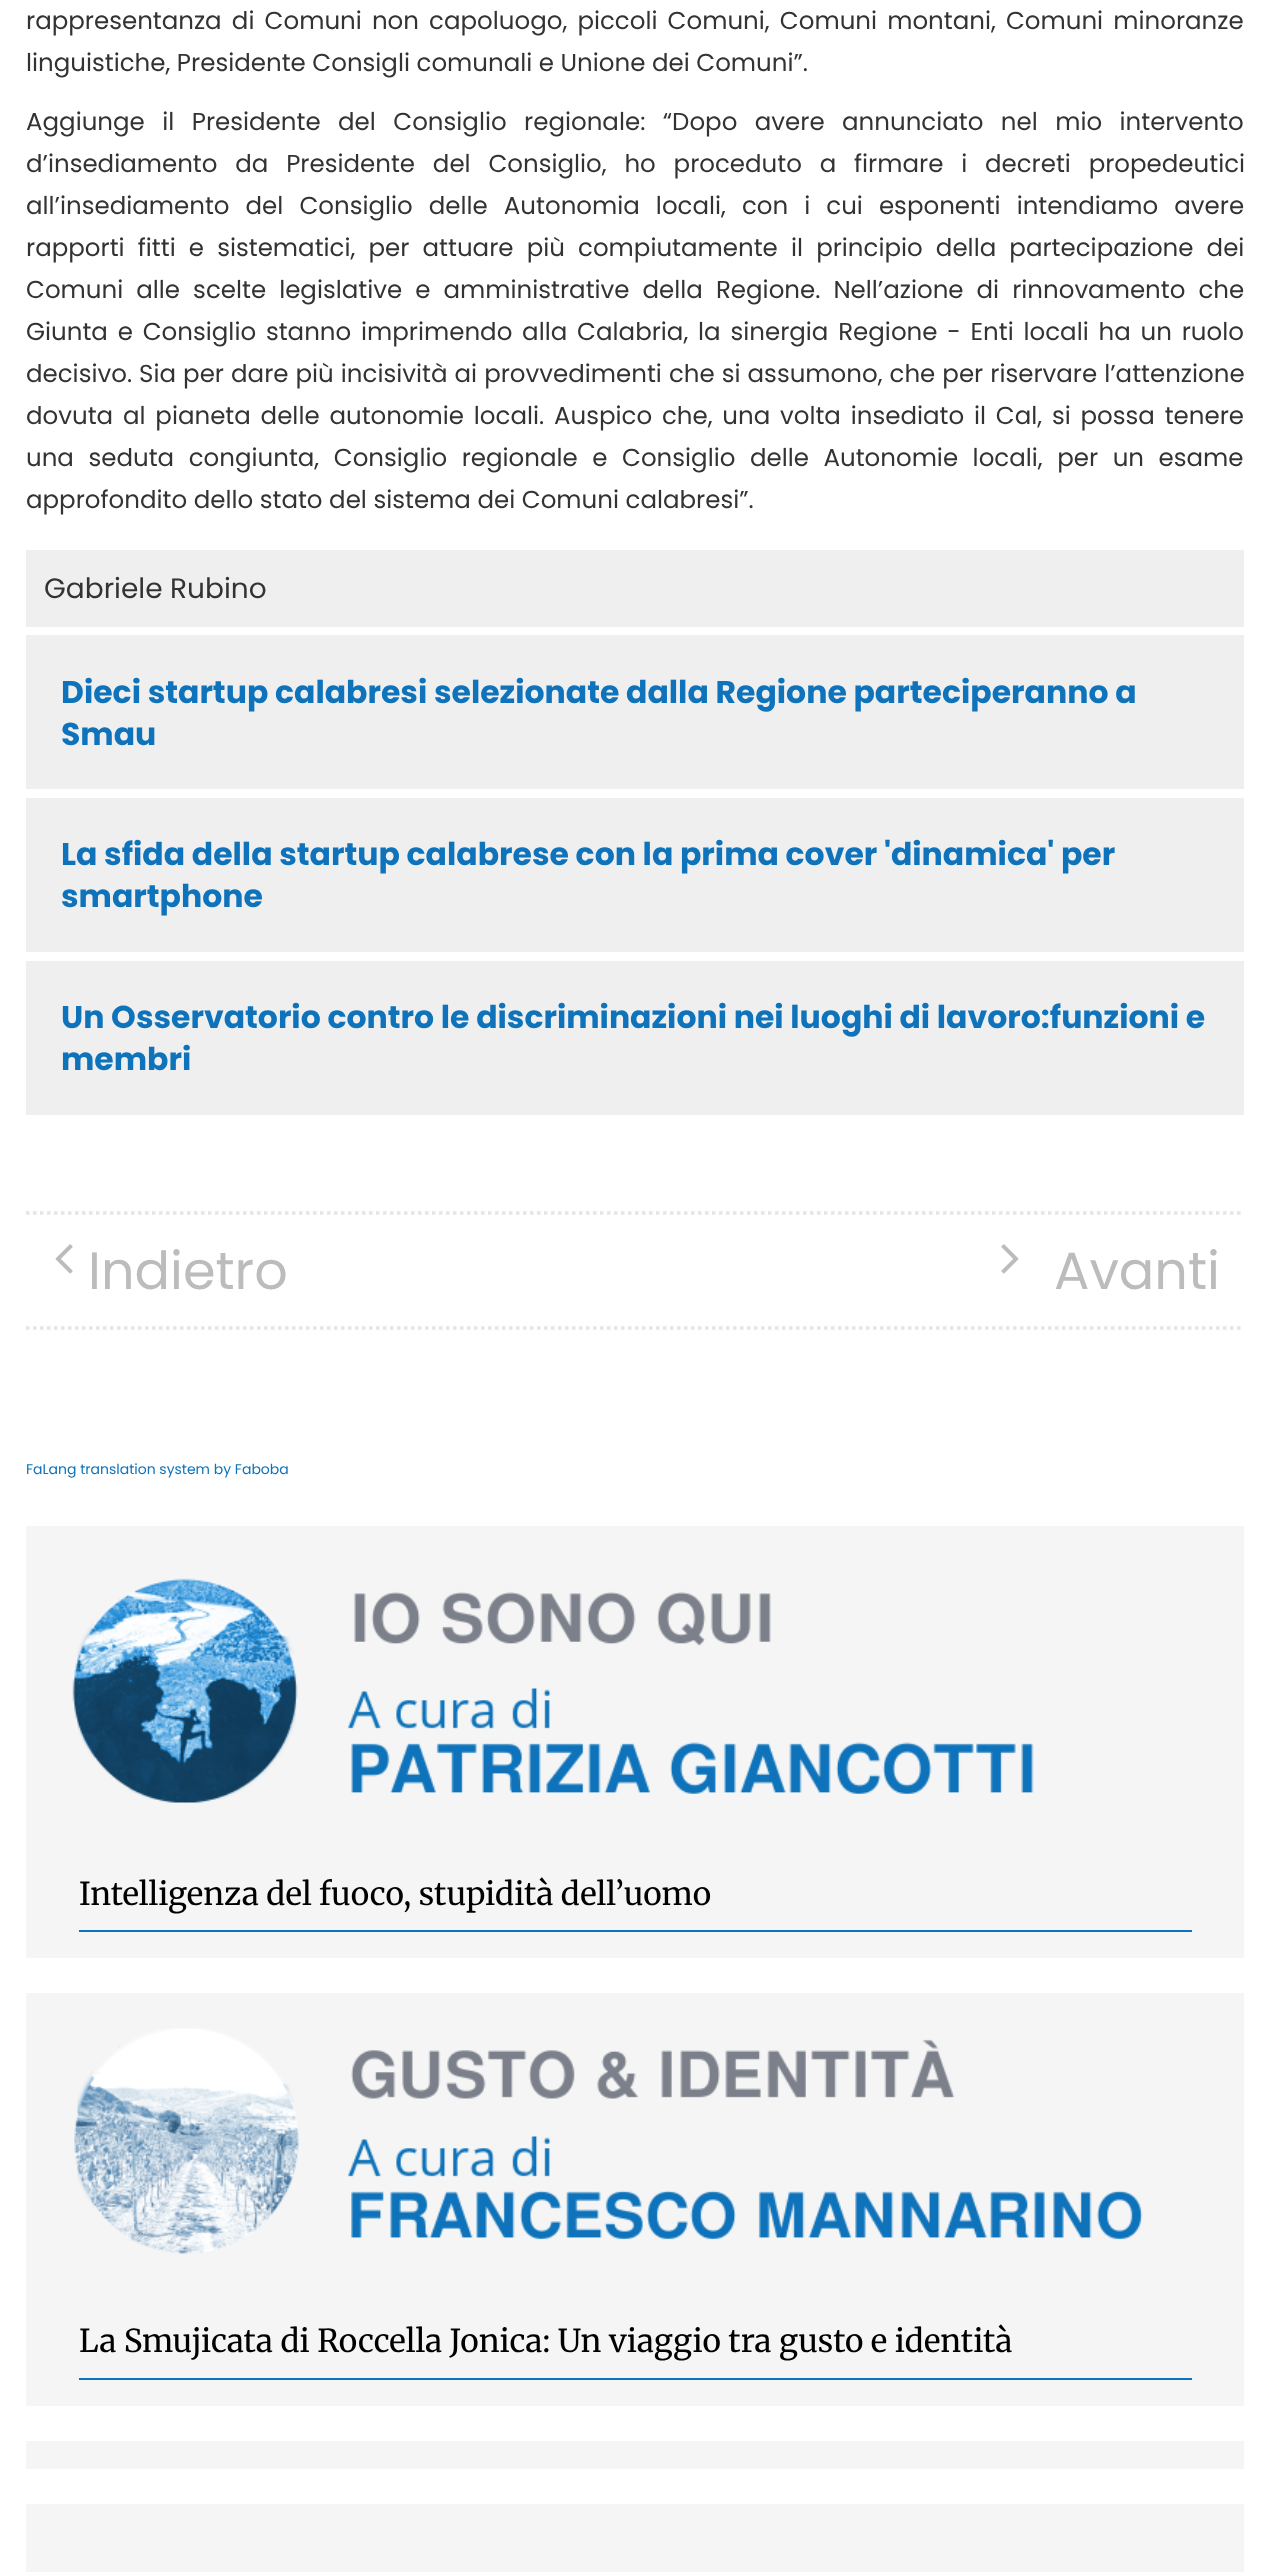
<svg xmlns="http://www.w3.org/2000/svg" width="1270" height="2572">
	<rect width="100%" height="100%" fill="#FFFFFF" />
	<g font-family="Poppins" font-size="24.5" fill="#333333">
		<text x="26" y="29" word-spacing="3.6">rappresentanza di Comuni non capoluogo, piccoli Comuni, Comuni montani, Comuni minoranze</text>
		<text x="26" y="71">linguistiche, Presidente Consigli comunali e Unione dei Comuni”.</text>
		<text x="26" y="130" word-spacing="10.9">Aggiunge il Presidente del Consiglio regionale: “Dopo avere annunciato nel mio intervento</text>
		<text x="26" y="172" word-spacing="11.25">d’insediamento da Presidente del Consiglio, ho proceduto a firmare i decreti propedeutici</text>
		<text x="26" y="214" word-spacing="9.5">all’insediamento del Consiglio delle Autonomia locali, con i cui esponenti intendiamo avere</text>
		<text x="26" y="256" word-spacing="6.6">rapporti fitti e sistematici, per attuare più compiutamente il principio della partecipazione dei</text>
		<text x="26" y="298" word-spacing="6.5">Comuni alle scelte legislative e amministrative della Regione. Nell’azione di rinnovamento che</text>
		<text x="26" y="340" word-spacing="3.25">Giunta e Consiglio stanno imprimendo alla Calabria, la sinergia Regione - Enti locali ha un ruolo</text>
		<text x="26" y="382" word-spacing="0.5">decisivo. Sia per dare più incisività ai provvedimenti che si assumono, che per riservare l’attenzione</text>
		<text x="26" y="424" word-spacing="3.25">dovuta al pianeta delle autonomie locali. Auspico che, una volta insediato il Cal, si possa tenere</text>
		<text x="26" y="466" word-spacing="8">una seduta congiunta, Consiglio regionale e Consiglio delle Autonomie locali, per un esame</text>
		<text x="26" y="508">approfondito dello stato del sistema dei Comuni calabresi”.</text>
	</g>
	<rect x="26" y="550" width="1218" height="77" fill="#EFEFEF" />
	<text x="44" y="598" font-family="Poppins" font-size="28" fill="#333333">Gabriele Rubino</text>
	<rect x="26" y="635" width="1218" height="154" fill="#EFEFEF" />
	<g font-family="Poppins" font-size="31.5" font-weight="700" fill="#0E73BA">
		<text x="61" y="703">Dieci startup calabresi selezionate dalla Regione parteciperanno a</text>
		<text x="61" y="745">Smau</text>
	</g>
	<rect x="26" y="798" width="1218" height="154" fill="#EFEFEF" />
	<g font-family="Poppins" font-size="31.5" font-weight="700" fill="#0E73BA">
		<text x="61" y="865">La sfida della startup calabrese con la prima cover 'dinamica' per</text>
		<text x="61" y="907">smartphone</text>
	</g>
	<rect x="26" y="961" width="1218" height="154" fill="#EFEFEF" />
	<g font-family="Poppins" font-size="31.5" font-weight="700" fill="#0E73BA">
		<text x="61" y="1028">Un Osservatorio contro le discriminazioni nei luoghi di lavoro:funzioni e</text>
		<text x="61" y="1070">membri</text>
	</g>
	<path d="M26 1213H1244" fill="none" stroke="#E5E5E5" stroke-width="3.5" stroke-dasharray="3.5 3.5" />
	<path d="M26 1328H1244" fill="none" stroke="#E5E5E5" stroke-width="3.5" stroke-dasharray="3.5 3.5" />
	<image x="55" y="1244" width="18" height="30" href="assets/img1.png" />
	<text x="88" y="1289" font-family="Poppins" font-size="52.5" fill="#BCBCBC">Indietro</text>
	<image x="1001" y="1244" width="18" height="30" href="assets/img2.png" />
	<text x="1054" y="1289" font-family="Poppins" font-size="52.5" fill="#BCBCBC">Avanti</text>
	<text x="26" y="1474" font-family="Poppins" font-size="14" fill="#0E73BA">FaLang translation system by Faboba</text>
	<rect x="26" y="1526" width="1218" height="432" fill="#F5F5F5" />
	<image x="72" y="1578" width="962" height="225" href="assets/img3.png" />
	<rect x="79" y="1930" width="1113" height="2" fill="#0E73BA" />
	<text x="79" y="1905" font-family="Merriweather" font-size="31.5" fill="#000000">Intelligenza del fuoco, stupidità dell’uomo</text>
	<rect x="26" y="1993" width="1218" height="413" fill="#F5F5F5" />
	<image x="74" y="2028" width="1069" height="226" href="assets/img4.png" />
	<rect x="79" y="2378" width="1113" height="2" fill="#0E73BA" />
	<text x="79" y="2352" font-family="Merriweather" font-size="31.5" fill="#000000">La Smujicata di Roccella Jonica: Un viaggio tra gusto e identità</text>
	<rect x="26" y="2441" width="1218" height="28" fill="#F5F5F5" />
	<rect x="26" y="2504" width="1218" height="68" fill="#F5F5F5" />
</svg>
